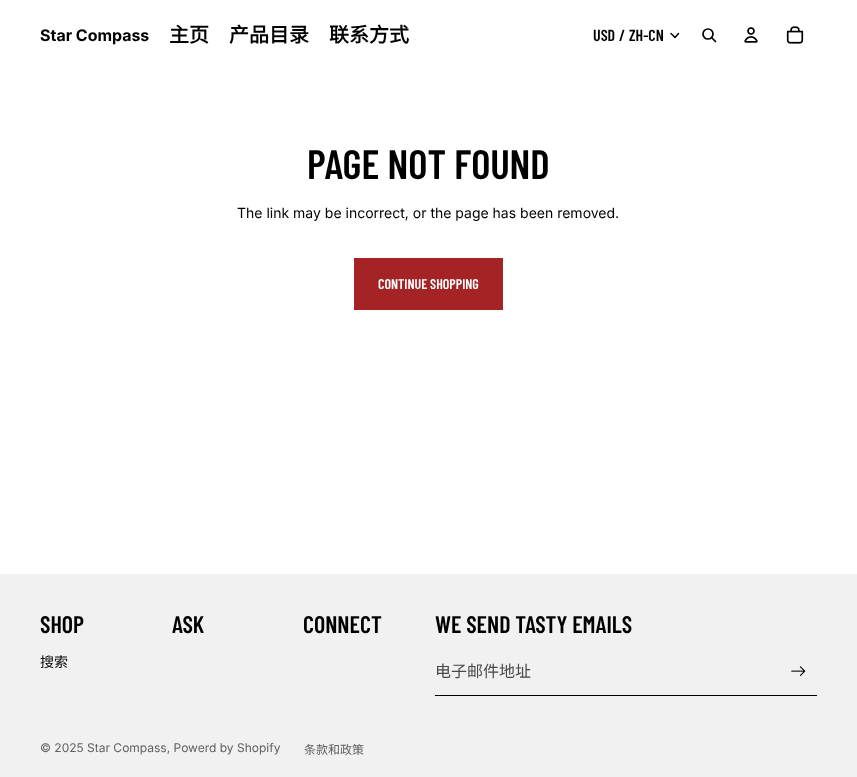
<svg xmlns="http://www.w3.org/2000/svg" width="857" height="777">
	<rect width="100%" height="100%" fill="#FFFFFF" />
	<text x="40" y="41" font-family="Inter" font-size="16" font-weight="700" fill="#000000">Star Compass</text>
	<g font-family="Noto Sans CJK SC" font-size="20" font-weight="700" fill="#000000">
		<text x="169" y="42">主页</text>
		<text x="229" y="42">产品目录</text>
		<text x="329" y="42">联系方式</text>
	</g>
	<g font-family="Barlow Condensed" font-size="16" font-weight="600" fill="#000000">
		<text x="593" y="41">USD</text>
		<text x="619" y="41">/</text>
		<text x="629" y="41">ZH-CN</text>
	</g>
	<path d="M678.5 33.5L675 37.5L671 33.5" fill="none" stroke="#000000" stroke-width="1.5" stroke-linecap="round" stroke-linejoin="round" />
	<circle cx="708" cy="34" r="5" fill="none" stroke="#000000" stroke-width="1.7" />
	<path d="M712 38L715.5 41.5" fill="none" stroke="#000000" stroke-width="1.7" stroke-linecap="round" stroke-linejoin="round" />
	<image x="744" y="27" width="14" height="16" href="assets/img1.png" />
	<image x="786" y="26" width="18" height="18" href="assets/img2.png" />
	<text x="307" y="179" font-family="Barlow Condensed" font-size="41" font-weight="600" fill="#000000">PAGE NOT FOUND</text>
	<text x="237" y="218" font-family="Inter" font-size="14" fill="#000000">The link may be incorrect, or the page has been removed.</text>
	<rect x="354" y="258" width="149" height="52" fill="#A42325" />
	<text x="378" y="289" font-family="Barlow Condensed" font-size="14" font-weight="600" fill="#FFFFFF">CONTINUE SHOPPING</text>
	<rect x="0" y="574" width="857" height="203" fill="#F1F1F1" />
	<text x="40" y="633" font-family="Barlow Condensed" font-size="24" font-weight="600" fill="#000000">SHOP</text>
	<text x="40" y="667" font-family="Noto Sans CJK SC" font-size="14" fill="#000000">搜索</text>
	<g font-family="Barlow Condensed" font-size="24" font-weight="600" fill="#000000">
		<text x="172" y="633">ASK</text>
		<text x="303" y="633">CONNECT</text>
		<text x="435" y="633">WE SEND TASTY EMAILS</text>
	</g>
	<rect x="435" y="695" width="382" height="1" fill="#000000" />
	<text x="435" y="677" font-family="Noto Sans CJK SC" font-size="16" fill="#484848">电子邮件地址</text>
	<image x="791" y="666" width="15" height="10" href="assets/img3.png" />
	<text x="40" y="752" font-family="Inter" font-size="12" fill="#606060">© 2025 Star Compass, Powerd by Shopify</text>
	<text x="304" y="754" font-family="Noto Sans CJK SC" font-size="12" fill="#606060">条款和政策</text>
</svg>
